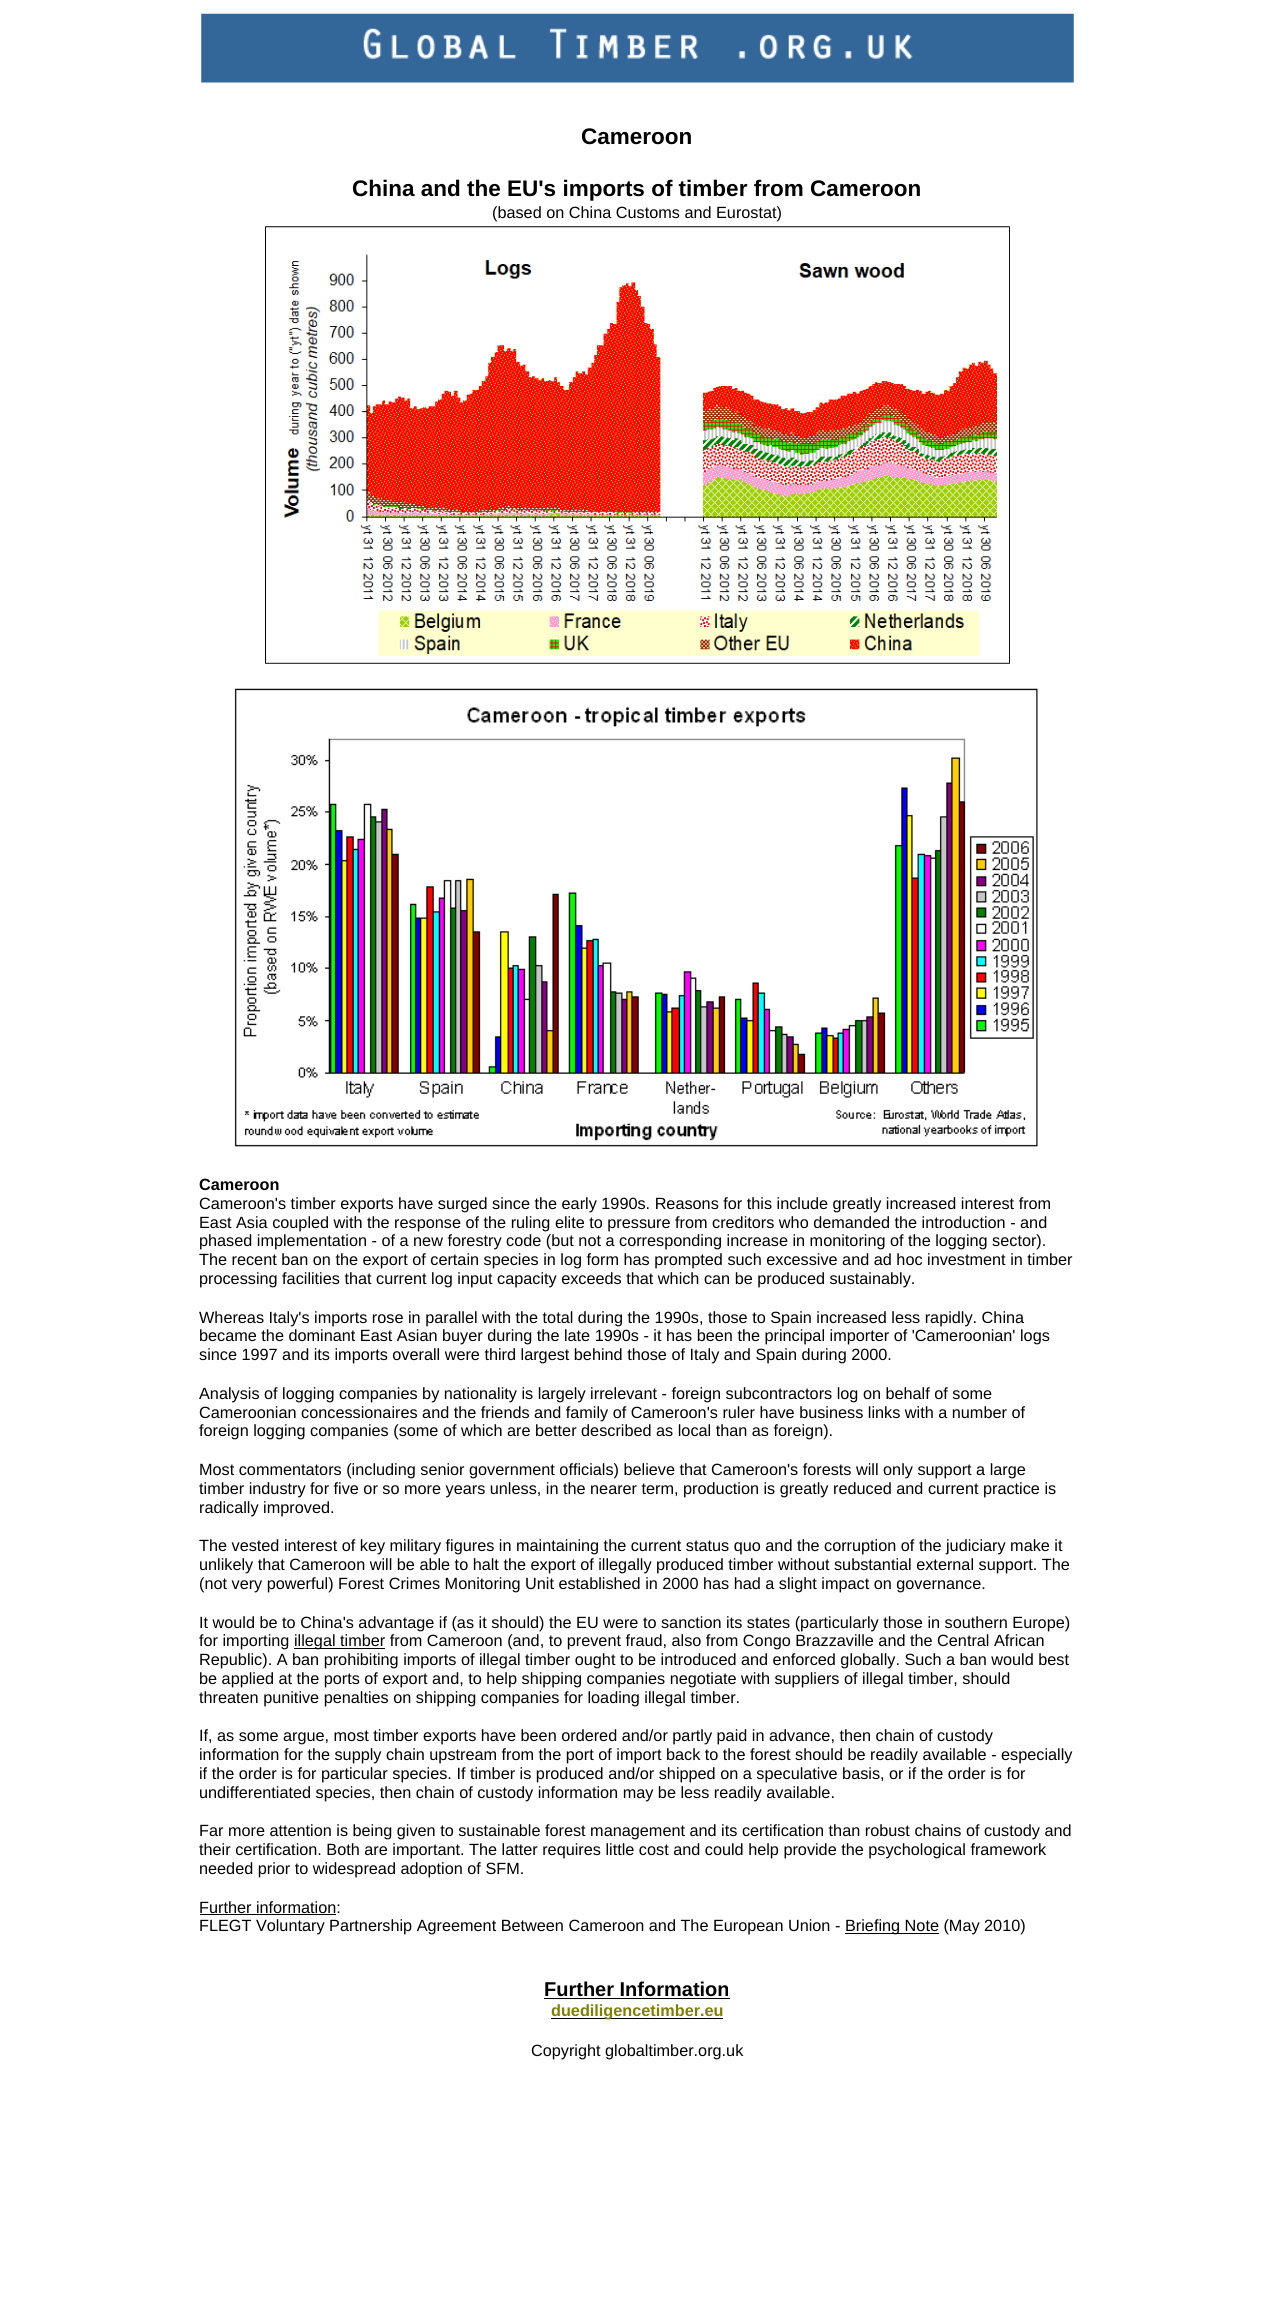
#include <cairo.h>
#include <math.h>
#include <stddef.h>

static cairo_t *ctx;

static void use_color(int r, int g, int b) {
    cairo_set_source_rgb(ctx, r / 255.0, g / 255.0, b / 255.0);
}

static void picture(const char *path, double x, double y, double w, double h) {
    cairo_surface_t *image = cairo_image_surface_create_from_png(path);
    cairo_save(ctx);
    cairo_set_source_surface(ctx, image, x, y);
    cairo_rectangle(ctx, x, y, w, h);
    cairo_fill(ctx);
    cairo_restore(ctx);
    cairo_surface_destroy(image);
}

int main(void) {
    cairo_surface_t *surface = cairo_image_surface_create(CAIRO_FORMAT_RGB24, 1273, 2312);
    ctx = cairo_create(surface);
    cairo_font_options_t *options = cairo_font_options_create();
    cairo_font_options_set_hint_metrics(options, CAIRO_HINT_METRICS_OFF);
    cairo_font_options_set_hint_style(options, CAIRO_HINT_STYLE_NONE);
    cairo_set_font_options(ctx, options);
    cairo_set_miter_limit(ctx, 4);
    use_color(255, 255, 255);
    cairo_paint(ctx);
    picture("img1.png", 201, 13, 873, 70);
    cairo_select_font_face(ctx, "Liberation Sans", CAIRO_FONT_SLANT_NORMAL, CAIRO_FONT_WEIGHT_BOLD);
    cairo_set_font_size(ctx, 22.5);
    use_color(0, 0, 0);
    cairo_move_to(ctx, 581, 144);
    cairo_show_text(ctx, "Cameroon");
    cairo_move_to(ctx, 352, 196);
    cairo_show_text(ctx, "China and the EU's imports of timber from Cameroon");
    cairo_select_font_face(ctx, "Liberation Sans", CAIRO_FONT_SLANT_NORMAL, CAIRO_FONT_WEIGHT_NORMAL);
    cairo_set_font_size(ctx, 16.25);
    cairo_move_to(ctx, 492, 218);
    cairo_show_text(ctx, "(based on China Customs and Eurostat)");
    picture("img2.png", 265, 226, 745, 438);
    picture("img3.png", 234, 688, 804, 459);
    cairo_select_font_face(ctx, "Liberation Sans", CAIRO_FONT_SLANT_NORMAL, CAIRO_FONT_WEIGHT_BOLD);
    cairo_move_to(ctx, 199, 1190);
    cairo_show_text(ctx, "Cameroon");
    cairo_select_font_face(ctx, "Liberation Sans", CAIRO_FONT_SLANT_NORMAL, CAIRO_FONT_WEIGHT_NORMAL);
    cairo_move_to(ctx, 199, 1209);
    cairo_show_text(ctx, "Cameroon's timber exports have surged since the early 1990s. Reasons for this include greatly increased interest from");
    cairo_move_to(ctx, 199, 1228);
    cairo_show_text(ctx, "East Asia coupled with the response of the ruling elite to pressure from creditors who demanded the introduction - and");
    cairo_move_to(ctx, 199, 1246);
    cairo_show_text(ctx, "phased implementation - of a new forestry code (but not a corresponding increase in monitoring of the logging sector).");
    cairo_move_to(ctx, 199, 1265);
    cairo_show_text(ctx, "The recent ban on the export of certain species in log form has prompted such excessive and ad hoc investment in timber");
    cairo_move_to(ctx, 199, 1284);
    cairo_show_text(ctx, "processing facilities that current log input capacity exceeds that which can be produced sustainably.");
    cairo_move_to(ctx, 199, 1323);
    cairo_show_text(ctx, "Whereas Italy's imports rose in parallel with the total during the 1990s, those to Spain increased less rapidly. China");
    cairo_move_to(ctx, 199, 1341);
    cairo_show_text(ctx, "became the dominant East Asian buyer during the late 1990s - it has been the principal importer of 'Cameroonian' logs");
    cairo_move_to(ctx, 199, 1360);
    cairo_show_text(ctx, "since 1997 and its imports overall were third largest behind those of Italy and Spain during 2000.");
    cairo_move_to(ctx, 199, 1399);
    cairo_show_text(ctx, "Analysis of logging companies by nationality is largely irrelevant - foreign subcontractors log on behalf of some");
    cairo_move_to(ctx, 199, 1418);
    cairo_show_text(ctx, "Cameroonian concessionaires and the friends and family of Cameroon's ruler have business links with a number of");
    cairo_move_to(ctx, 199, 1436);
    cairo_show_text(ctx, "foreign logging companies (some of which are better described as local than as foreign).");
    cairo_move_to(ctx, 199, 1475);
    cairo_show_text(ctx, "Most commentators (including senior government officials) believe that Cameroon's forests will only support a large");
    cairo_move_to(ctx, 199, 1494);
    cairo_show_text(ctx, "timber industry for five or so more years unless, in the nearer term, production is greatly reduced and current practice is");
    cairo_move_to(ctx, 199, 1513);
    cairo_show_text(ctx, "radically improved.");
    cairo_move_to(ctx, 199, 1551);
    cairo_show_text(ctx, "The vested interest of key military figures in maintaining the current status quo and the corruption of the judiciary make it");
    cairo_move_to(ctx, 199, 1570);
    cairo_show_text(ctx, "unlikely that Cameroon will be able to halt the export of illegally produced timber without substantial external support. The");
    cairo_move_to(ctx, 199, 1589);
    cairo_show_text(ctx, "(not very powerful) Forest Crimes Monitoring Unit established in 2000 has had a slight impact on governance.");
    cairo_move_to(ctx, 199, 1628);
    cairo_show_text(ctx, "It would be to China's advantage if (as it should) the EU were to sanction its states (particularly those in southern Europe)");
    cairo_move_to(ctx, 199, 1646);
    cairo_show_text(ctx, "for importing");
    cairo_rectangle(ctx, 294, 1648, 91, 1);
    cairo_fill(ctx);
    cairo_move_to(ctx, 294, 1646);
    cairo_show_text(ctx, "illegal timber from Cameroon (and, to prevent fraud, also from Congo Brazzaville and the Central African");
    cairo_move_to(ctx, 199, 1665);
    cairo_show_text(ctx, "Republic). A ban prohibiting imports of illegal timber ought to be introduced and enforced globally. Such a ban would best");
    cairo_move_to(ctx, 199, 1684);
    cairo_show_text(ctx, "be applied at the ports of export and, to help shipping companies negotiate with suppliers of illegal timber, should");
    cairo_move_to(ctx, 199, 1703);
    cairo_show_text(ctx, "threaten punitive penalties on shipping companies for loading illegal timber.");
    cairo_move_to(ctx, 199, 1741);
    cairo_show_text(ctx, "If, as some argue, most timber exports have been ordered and/or partly paid in advance, then chain of custody");
    cairo_move_to(ctx, 199, 1760);
    cairo_show_text(ctx, "information for the supply chain upstream from the port of import back to the forest should be readily available - especially");
    cairo_move_to(ctx, 199, 1779);
    cairo_show_text(ctx, "if the order is for particular species. If timber is produced and/or shipped on a speculative basis, or if the order is for");
    cairo_move_to(ctx, 199, 1798);
    cairo_show_text(ctx, "undifferentiated species, then chain of custody information may be less readily available.");
    cairo_move_to(ctx, 199, 1836);
    cairo_show_text(ctx, "Far more attention is being given to sustainable forest management and its certification than robust chains of custody and");
    cairo_move_to(ctx, 199, 1855);
    cairo_show_text(ctx, "their certification. Both are important. The latter requires little cost and could help provide the psychological framework");
    cairo_move_to(ctx, 199, 1874);
    cairo_show_text(ctx, "needed prior to widespread adoption of SFM.");
    cairo_move_to(ctx, 199, 1913);
    cairo_show_text(ctx, "Further information:");
    cairo_rectangle(ctx, 200, 1914, 136, 1);
    cairo_fill(ctx);
    cairo_move_to(ctx, 199, 1931);
    cairo_show_text(ctx, "FLEGT Voluntary Partnership Agreement Between Cameroon and The European Union -");
    cairo_rectangle(ctx, 845, 1933, 94, 1);
    cairo_fill(ctx);
    cairo_move_to(ctx, 845, 1931);
    cairo_show_text(ctx, "Briefing Note (May 2010)");
    cairo_select_font_face(ctx, "Liberation Sans", CAIRO_FONT_SLANT_NORMAL, CAIRO_FONT_WEIGHT_BOLD);
    cairo_set_font_size(ctx, 20);
    cairo_move_to(ctx, 544, 1996);
    cairo_show_text(ctx, "Further Information");
    cairo_rectangle(ctx, 544, 1998, 186, 1);
    cairo_fill(ctx);
    cairo_rectangle(ctx, 551, 2018, 172, 1);
    cairo_fill(ctx);
    cairo_set_font_size(ctx, 16.25);
    use_color(128, 128, 0);
    cairo_move_to(ctx, 551, 2016);
    cairo_show_text(ctx, "duediligencetimber.eu");
    cairo_select_font_face(ctx, "Liberation Sans", CAIRO_FONT_SLANT_NORMAL, CAIRO_FONT_WEIGHT_NORMAL);
    use_color(0, 0, 0);
    cairo_move_to(ctx, 531, 2056);
    cairo_show_text(ctx, "Copyright globaltimber.org.uk");
    cairo_surface_write_to_png(surface, "result.png");
    cairo_font_options_destroy(options);
    cairo_destroy(ctx);
    cairo_surface_destroy(surface);
    return 0;
}
